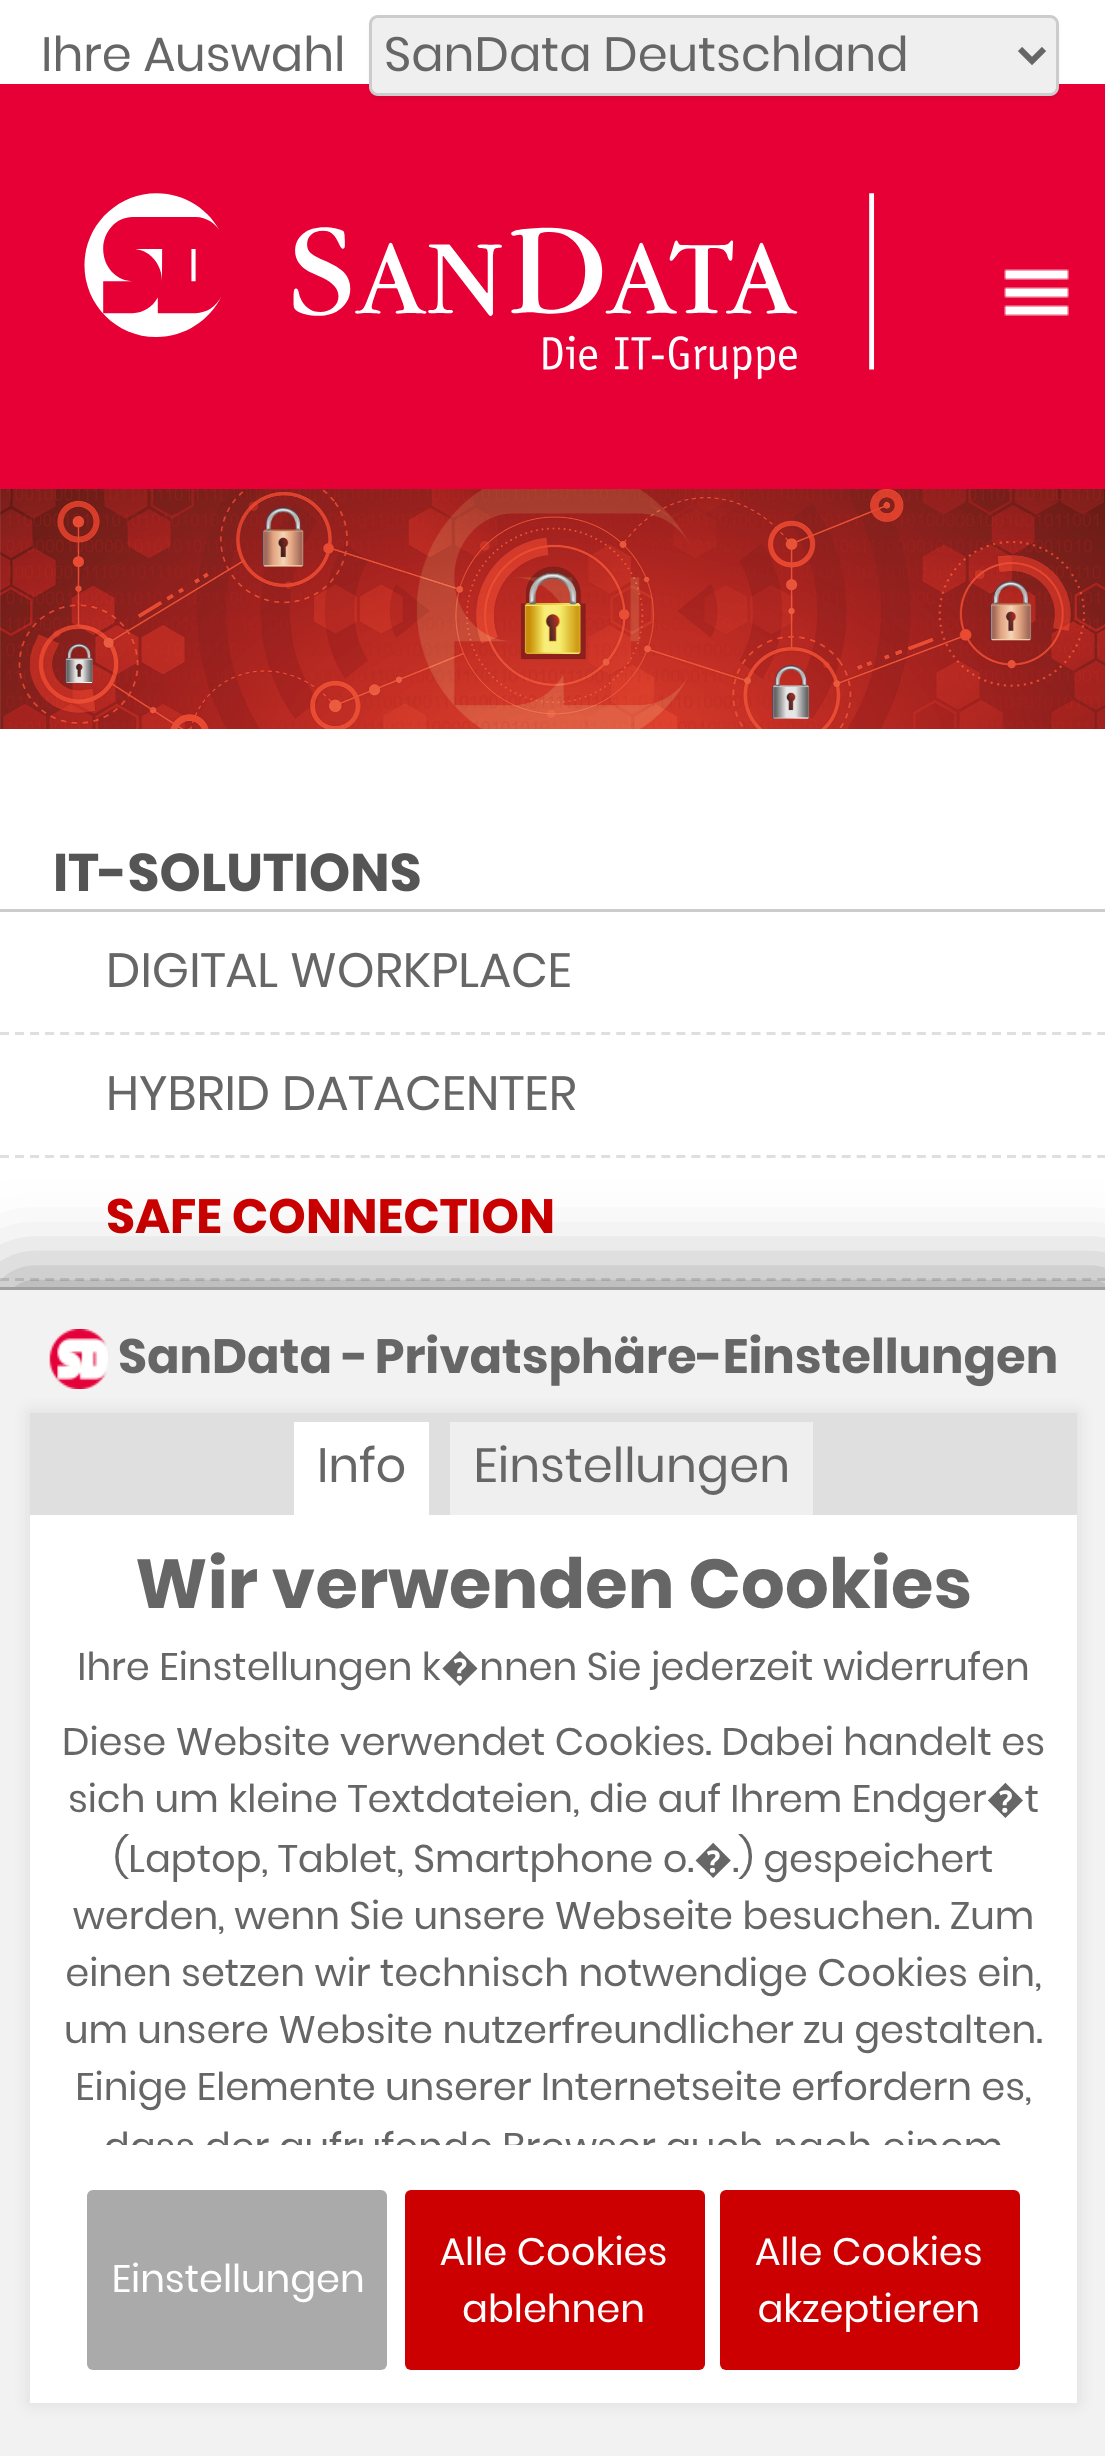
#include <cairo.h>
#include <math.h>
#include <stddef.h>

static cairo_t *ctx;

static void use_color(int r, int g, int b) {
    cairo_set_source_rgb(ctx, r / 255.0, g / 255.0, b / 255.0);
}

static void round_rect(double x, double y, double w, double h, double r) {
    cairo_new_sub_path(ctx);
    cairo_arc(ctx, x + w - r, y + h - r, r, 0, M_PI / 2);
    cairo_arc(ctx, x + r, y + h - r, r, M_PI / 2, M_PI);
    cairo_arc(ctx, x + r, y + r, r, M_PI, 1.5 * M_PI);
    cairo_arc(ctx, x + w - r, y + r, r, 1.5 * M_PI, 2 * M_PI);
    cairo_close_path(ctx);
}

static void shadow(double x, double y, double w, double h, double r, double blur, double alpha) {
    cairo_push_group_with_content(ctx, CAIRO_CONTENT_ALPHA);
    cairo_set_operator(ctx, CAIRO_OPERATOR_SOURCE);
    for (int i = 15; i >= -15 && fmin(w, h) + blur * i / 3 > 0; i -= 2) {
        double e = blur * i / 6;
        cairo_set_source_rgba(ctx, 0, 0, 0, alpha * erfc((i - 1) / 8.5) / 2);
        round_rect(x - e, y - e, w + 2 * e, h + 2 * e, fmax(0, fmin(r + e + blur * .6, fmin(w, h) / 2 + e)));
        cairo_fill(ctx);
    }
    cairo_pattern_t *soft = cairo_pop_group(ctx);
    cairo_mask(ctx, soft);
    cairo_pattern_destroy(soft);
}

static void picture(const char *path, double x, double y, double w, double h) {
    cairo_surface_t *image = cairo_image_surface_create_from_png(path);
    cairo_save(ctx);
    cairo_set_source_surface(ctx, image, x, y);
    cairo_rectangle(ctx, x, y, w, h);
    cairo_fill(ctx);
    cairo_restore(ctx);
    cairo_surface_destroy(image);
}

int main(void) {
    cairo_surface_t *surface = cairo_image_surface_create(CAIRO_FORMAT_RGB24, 1105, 2456);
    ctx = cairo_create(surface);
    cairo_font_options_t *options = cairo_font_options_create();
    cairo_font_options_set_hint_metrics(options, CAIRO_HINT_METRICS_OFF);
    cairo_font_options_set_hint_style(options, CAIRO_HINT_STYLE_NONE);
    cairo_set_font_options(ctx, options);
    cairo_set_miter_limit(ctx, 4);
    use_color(255, 255, 255);
    cairo_paint(ctx);
    cairo_select_font_face(ctx, "Poppins", CAIRO_FONT_SLANT_NORMAL, CAIRO_FONT_WEIGHT_NORMAL);
    cairo_set_font_size(ctx, 48);
    use_color(102, 102, 102);
    cairo_move_to(ctx, 41, 71);
    cairo_show_text(ctx, "Ihre Auswahl");
    use_color(230, 0, 53);
    cairo_rectangle(ctx, 0, 84, 1105, 405);
    cairo_fill(ctx);
    use_color(0, 0, 0);
    shadow(369, 18, 690, 81, 9, 1.5, 0.05);
    use_color(239, 239, 239);
    round_rect(370.5, 16.5, 687, 78, 7.5);
    cairo_fill_preserve(ctx);
    use_color(204, 204, 204);
    cairo_set_line_width(ctx, 3);
    cairo_stroke(ctx);
    cairo_new_path(ctx);
    cairo_move_to(ctx, 1020, 49);
    cairo_line_to(ctx, 1032, 61);
    cairo_line_to(ctx, 1044, 49);
    use_color(102, 102, 102);
    cairo_set_line_width(ctx, 6);
    cairo_stroke(ctx);
    cairo_move_to(ctx, 384, 71);
    cairo_show_text(ctx, "SanData Deutschland");
    picture("img1.png", 84, 193, 791, 187);
    picture("img2.png", 1004, 269, 65, 47);
    picture("img3.png", 0, 489, 1105, 240);
    use_color(204, 204, 204);
    cairo_rectangle(ctx, 0, 909, 1105, 3);
    cairo_fill(ctx);
    cairo_select_font_face(ctx, "Poppins", CAIRO_FONT_SLANT_NORMAL, CAIRO_FONT_WEIGHT_BOLD);
    cairo_set_font_size(ctx, 52.75);
    use_color(85, 85, 85);
    cairo_move_to(ctx, 53, 891);
    cairo_show_text(ctx, "IT-SOLUTIONS");
    cairo_new_path(ctx);
    cairo_move_to(ctx, 0, 1033.5);
    cairo_line_to(ctx, 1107, 1033.5);
    use_color(223, 223, 223);
    cairo_set_line_width(ctx, 3);
    cairo_set_dash(ctx, (double[]){9, 6.03}, 2, 0);
    cairo_stroke(ctx);
    cairo_select_font_face(ctx, "Poppins", CAIRO_FONT_SLANT_NORMAL, CAIRO_FONT_WEIGHT_NORMAL);
    cairo_set_font_size(ctx, 48);
    use_color(102, 102, 102);
    cairo_move_to(ctx, 106, 987);
    cairo_show_text(ctx, "DIGITAL WORKPLACE");
    cairo_new_path(ctx);
    cairo_move_to(ctx, 0, 1156.5);
    cairo_line_to(ctx, 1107, 1156.5);
    use_color(223, 223, 223);
    cairo_stroke(ctx);
    use_color(102, 102, 102);
    cairo_move_to(ctx, 106, 1110);
    cairo_show_text(ctx, "HYBRID DATACENTER");
    cairo_new_path(ctx);
    cairo_move_to(ctx, 0, 1279.5);
    cairo_line_to(ctx, 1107, 1279.5);
    use_color(223, 223, 223);
    cairo_stroke(ctx);
    cairo_select_font_face(ctx, "Poppins", CAIRO_FONT_SLANT_NORMAL, CAIRO_FONT_WEIGHT_BOLD);
    use_color(204, 0, 0);
    cairo_move_to(ctx, 106, 1233);
    cairo_show_text(ctx, "SAFE CONNECTION");
    use_color(0, 0, 0);
    shadow(9, 1287, 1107, 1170, 0, 43.5, 0.5);
    use_color(242, 242, 242);
    cairo_rectangle(ctx, 0, 1290, 1105, 1166);
    cairo_fill(ctx);
    use_color(160, 160, 160);
    cairo_rectangle(ctx, 0, 1287, 1105, 3);
    cairo_fill(ctx);
    picture("img4.png", 49, 1329, 59, 60);
    use_color(102, 102, 102);
    cairo_move_to(ctx, 118, 1373);
    cairo_show_text(ctx, "SanData − Privatsphäre-Einstellungen");
    use_color(0, 0, 0);
    shadow(30, 1413, 1047, 990, 0, 9, 0.1);
    picture("img5.png", 30, 1413, 1047, 957);
    use_color(255, 255, 255);
    cairo_rectangle(ctx, 30, 2370, 1047, 33);
    cairo_fill(ctx);
    cairo_surface_write_to_png(surface, "result.png");
    cairo_font_options_destroy(options);
    cairo_destroy(ctx);
    cairo_surface_destroy(surface);
    return 0;
}
